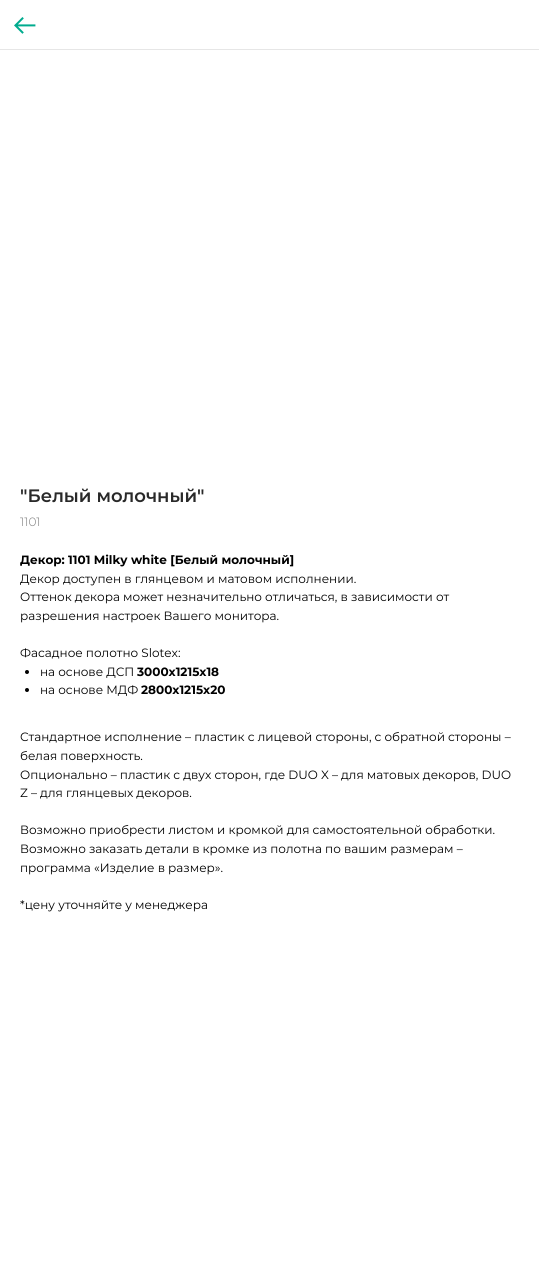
#include <cairo.h>
#include <math.h>
#include <stddef.h>

static cairo_t *ctx;

static void use_color(int r, int g, int b) {
    cairo_set_source_rgb(ctx, r / 255.0, g / 255.0, b / 255.0);
}

static void picture(const char *path, double x, double y, double w, double h) {
    cairo_surface_t *image = cairo_image_surface_create_from_png(path);
    cairo_save(ctx);
    cairo_set_source_surface(ctx, image, x, y);
    cairo_rectangle(ctx, x, y, w, h);
    cairo_fill(ctx);
    cairo_restore(ctx);
    cairo_surface_destroy(image);
}

int main(void) {
    cairo_surface_t *surface = cairo_image_surface_create(CAIRO_FORMAT_RGB24, 539, 1284);
    ctx = cairo_create(surface);
    cairo_font_options_t *options = cairo_font_options_create();
    cairo_font_options_set_hint_metrics(options, CAIRO_HINT_METRICS_OFF);
    cairo_font_options_set_hint_style(options, CAIRO_HINT_STYLE_NONE);
    cairo_set_font_options(ctx, options);
    cairo_set_miter_limit(ctx, 4);
    use_color(255, 255, 255);
    cairo_paint(ctx);
    use_color(230, 230, 230);
    cairo_rectangle(ctx, 0, 49, 539, 1);
    cairo_fill(ctx);
    picture("img1.png", 14, 17, 22, 17);
    cairo_select_font_face(ctx, "Montserrat SemiBold", CAIRO_FONT_SLANT_NORMAL, CAIRO_FONT_WEIGHT_NORMAL);
    cairo_set_font_size(ctx, 18);
    use_color(41, 41, 41);
    cairo_move_to(ctx, 20, 502);
    cairo_show_text(ctx, "\"Белый молочный\"");
    cairo_select_font_face(ctx, "Montserrat Light", CAIRO_FONT_SLANT_NORMAL, CAIRO_FONT_WEIGHT_NORMAL);
    cairo_set_font_size(ctx, 12);
    use_color(119, 119, 119);
    cairo_move_to(ctx, 20, 526);
    cairo_show_text(ctx, "1101");
    cairo_select_font_face(ctx, "Montserrat", CAIRO_FONT_SLANT_NORMAL, CAIRO_FONT_WEIGHT_BOLD);
    use_color(0, 0, 0);
    cairo_move_to(ctx, 20, 564);
    cairo_show_text(ctx, "Декор: 1101 Milky white [Белый молочный]");
    cairo_select_font_face(ctx, "Montserrat", CAIRO_FONT_SLANT_NORMAL, CAIRO_FONT_WEIGHT_NORMAL);
    cairo_move_to(ctx, 20, 583);
    cairo_show_text(ctx, "Декор доступен в глянцевом и матовом исполнении.");
    cairo_move_to(ctx, 20, 601);
    cairo_show_text(ctx, "Оттенок декора может незначительно отличаться, в зависимости от");
    cairo_move_to(ctx, 20, 620);
    cairo_show_text(ctx, "разрешения настроек Вашего монитора.");
    cairo_move_to(ctx, 20, 657);
    cairo_show_text(ctx, "Фасадное полотно Slotex:");
    cairo_new_path(ctx);
    cairo_arc(ctx, 27, 672, 2, 0, 2 * M_PI);
    cairo_fill(ctx);
    cairo_move_to(ctx, 40, 676);
    cairo_show_text(ctx, "на основе ДСП");
    cairo_select_font_face(ctx, "Montserrat", CAIRO_FONT_SLANT_NORMAL, CAIRO_FONT_WEIGHT_BOLD);
    cairo_move_to(ctx, 137, 676);
    cairo_show_text(ctx, "3000х1215х18");
    cairo_new_path(ctx);
    cairo_arc(ctx, 27, 690, 2, 0, 2 * M_PI);
    cairo_fill(ctx);
    cairo_select_font_face(ctx, "Montserrat", CAIRO_FONT_SLANT_NORMAL, CAIRO_FONT_WEIGHT_NORMAL);
    cairo_move_to(ctx, 40, 694);
    cairo_show_text(ctx, "на основе МДФ");
    cairo_select_font_face(ctx, "Montserrat", CAIRO_FONT_SLANT_NORMAL, CAIRO_FONT_WEIGHT_BOLD);
    cairo_move_to(ctx, 141, 694);
    cairo_show_text(ctx, "2800х1215х20");
    cairo_select_font_face(ctx, "Montserrat", CAIRO_FONT_SLANT_NORMAL, CAIRO_FONT_WEIGHT_NORMAL);
    cairo_move_to(ctx, 20, 741);
    cairo_show_text(ctx, "Стандартное исполнение – пластик с лицевой стороны, с обратной стороны –");
    cairo_move_to(ctx, 20, 760);
    cairo_show_text(ctx, "белая поверхность.");
    cairo_move_to(ctx, 20, 779);
    cairo_show_text(ctx, "Опционально – пластик с двух сторон, где DUO X – для матовых декоров, DUO");
    cairo_move_to(ctx, 20, 797);
    cairo_show_text(ctx, "Z – для глянцевых декоров.");
    cairo_move_to(ctx, 20, 834);
    cairo_show_text(ctx, "Возможно приобрести листом и кромкой для самостоятельной обработки.");
    cairo_move_to(ctx, 20, 853);
    cairo_show_text(ctx, "Возможно заказать детали в кромке из полотна по вашим размерам –");
    cairo_move_to(ctx, 20, 872);
    cairo_show_text(ctx, "программа «Изделие в размер».");
    cairo_move_to(ctx, 20, 909);
    cairo_show_text(ctx, "*цену уточняйте у менеджера");
    cairo_surface_write_to_png(surface, "result.png");
    cairo_font_options_destroy(options);
    cairo_destroy(ctx);
    cairo_surface_destroy(surface);
    return 0;
}
